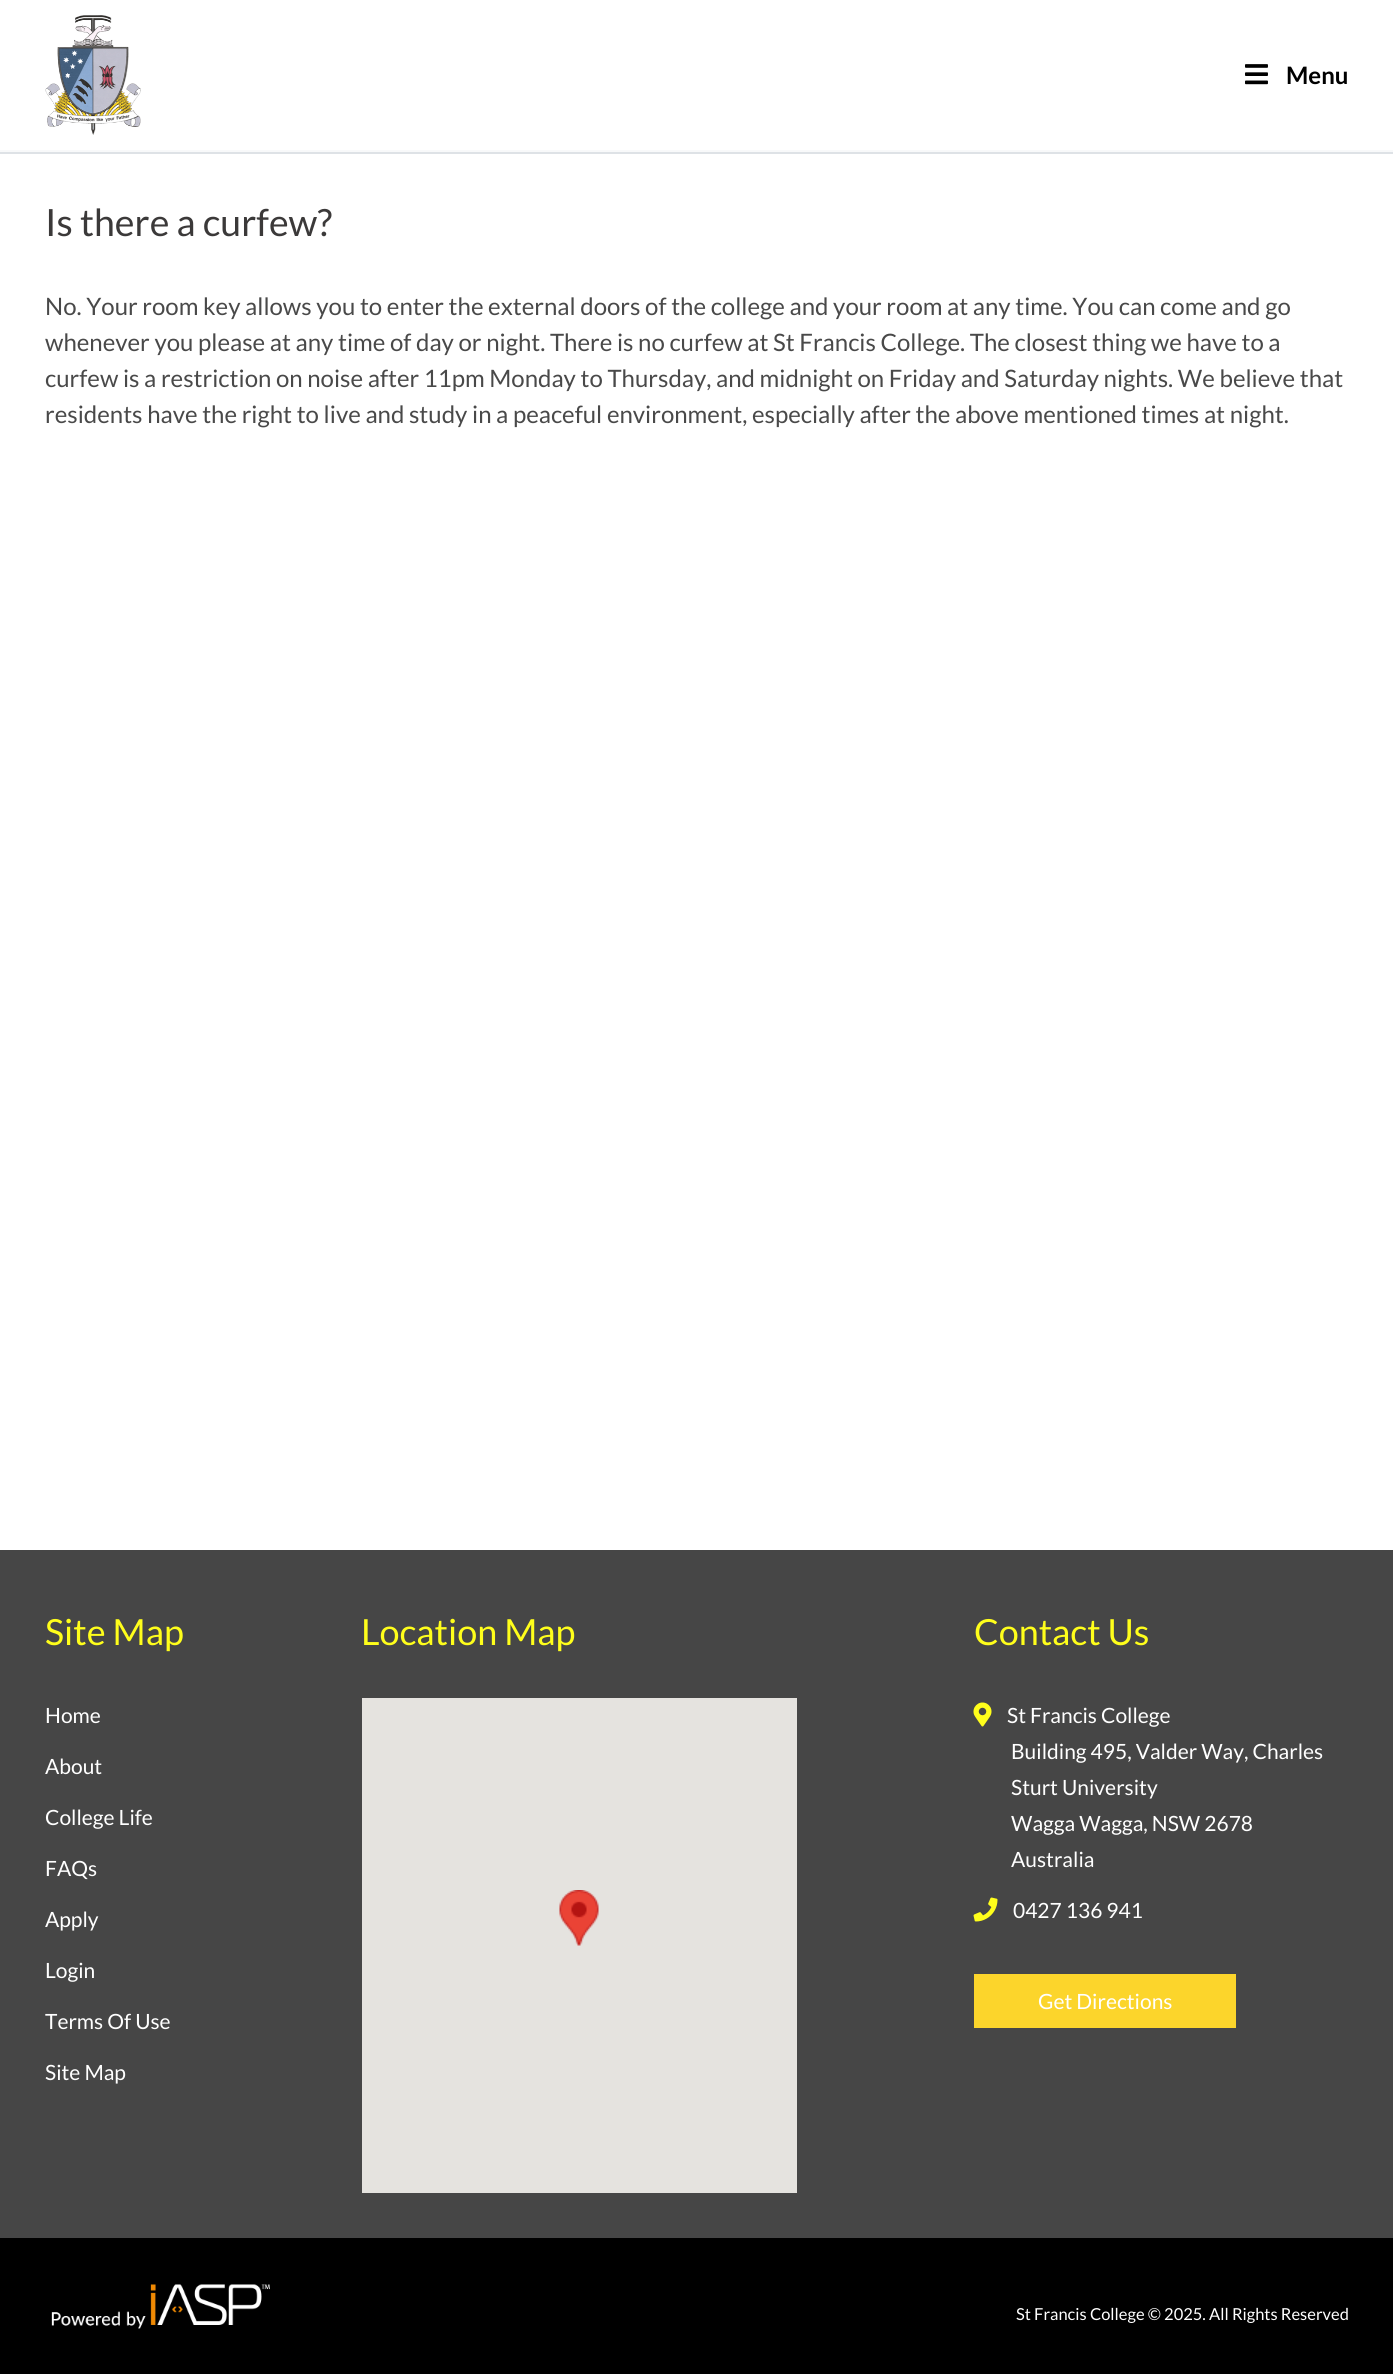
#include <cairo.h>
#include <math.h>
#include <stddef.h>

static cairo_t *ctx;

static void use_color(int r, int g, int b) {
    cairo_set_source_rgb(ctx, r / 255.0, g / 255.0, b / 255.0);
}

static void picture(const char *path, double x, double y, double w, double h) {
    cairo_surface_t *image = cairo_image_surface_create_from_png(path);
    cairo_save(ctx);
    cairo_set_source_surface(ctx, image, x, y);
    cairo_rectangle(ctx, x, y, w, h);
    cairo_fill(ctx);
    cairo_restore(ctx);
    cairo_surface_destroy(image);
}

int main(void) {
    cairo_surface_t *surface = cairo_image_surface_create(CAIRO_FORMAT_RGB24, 1393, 2374);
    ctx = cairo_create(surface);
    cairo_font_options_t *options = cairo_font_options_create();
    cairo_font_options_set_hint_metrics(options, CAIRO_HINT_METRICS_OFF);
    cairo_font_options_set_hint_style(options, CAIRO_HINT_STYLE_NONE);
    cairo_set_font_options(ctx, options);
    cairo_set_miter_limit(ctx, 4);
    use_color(255, 255, 255);
    cairo_paint(ctx);
    picture("img1.png", 45, 15, 96, 120);
    picture("img2.png", 1245, 64, 23, 21);
    cairo_select_font_face(ctx, "Lato", CAIRO_FONT_SLANT_NORMAL, CAIRO_FONT_WEIGHT_BOLD);
    cairo_set_font_size(ctx, 24);
    use_color(0, 0, 0);
    cairo_move_to(ctx, 1286, 84);
    cairo_show_text(ctx, "Menu");
    use_color(248, 249, 250);
    cairo_rectangle(ctx, 0, 150, 1393, 2);
    cairo_fill(ctx);
    use_color(222, 226, 230);
    cairo_rectangle(ctx, 0, 152, 1393, 2);
    cairo_fill(ctx);
    cairo_select_font_face(ctx, "Lato", CAIRO_FONT_SLANT_NORMAL, CAIRO_FONT_WEIGHT_NORMAL);
    cairo_set_font_size(ctx, 37.5);
    use_color(59, 57, 57);
    cairo_move_to(ctx, 45, 236);
    cairo_show_text(ctx, "Is there a curfew?");
    cairo_set_font_size(ctx, 24);
    use_color(73, 73, 73);
    cairo_move_to(ctx, 45, 315);
    cairo_show_text(ctx, "No. Your room key allows you to enter the external doors of the college and your room at any time. You can come and go");
    cairo_move_to(ctx, 45, 351);
    cairo_show_text(ctx, "whenever you please at any time of day or night. There is no curfew at St Francis College. The closest thing we have to a");
    cairo_move_to(ctx, 45, 387);
    cairo_show_text(ctx, "curfew is a restriction on noise after 11pm Monday to Thursday, and midnight on Friday and Saturday nights. We believe that");
    cairo_move_to(ctx, 45, 423);
    cairo_show_text(ctx, "residents have the right to live and study in a peaceful environment, especially after the above mentioned times at night.");
    use_color(70, 70, 70);
    cairo_rectangle(ctx, 0, 1550, 1393, 688);
    cairo_fill(ctx);
    cairo_set_font_size(ctx, 36);
    use_color(255, 254, 27);
    cairo_move_to(ctx, 45, 1645);
    cairo_show_text(ctx, "Site Map");
    cairo_set_font_size(ctx, 21);
    use_color(255, 255, 255);
    cairo_move_to(ctx, 45, 1723);
    cairo_show_text(ctx, "Home");
    cairo_move_to(ctx, 45, 1774);
    cairo_show_text(ctx, "About");
    cairo_move_to(ctx, 45, 1825);
    cairo_show_text(ctx, "College Life");
    cairo_move_to(ctx, 45, 1876);
    cairo_show_text(ctx, "FAQs");
    cairo_move_to(ctx, 45, 1927);
    cairo_show_text(ctx, "Apply");
    cairo_move_to(ctx, 45, 1978);
    cairo_show_text(ctx, "Login");
    cairo_move_to(ctx, 45, 2029);
    cairo_show_text(ctx, "Terms Of Use");
    cairo_move_to(ctx, 45, 2080);
    cairo_show_text(ctx, "Site Map");
    cairo_set_font_size(ctx, 36);
    use_color(255, 254, 27);
    cairo_move_to(ctx, 361, 1645);
    cairo_show_text(ctx, "Location Map");
    use_color(229, 227, 223);
    cairo_rectangle(ctx, 362, 1698, 435, 495);
    cairo_fill(ctx);
    picture("img3.png", 559, 1890, 40, 56);
    use_color(255, 254, 27);
    cairo_move_to(ctx, 974, 1645);
    cairo_show_text(ctx, "Contact Us");
    picture("img4.png", 973, 1702, 19, 25);
    cairo_set_font_size(ctx, 21);
    use_color(255, 255, 255);
    cairo_move_to(ctx, 1007, 1723);
    cairo_show_text(ctx, "St Francis College");
    cairo_move_to(ctx, 1011, 1759);
    cairo_show_text(ctx, "Building 495, Valder Way, Charles");
    cairo_move_to(ctx, 1011, 1795);
    cairo_show_text(ctx, "Sturt University");
    cairo_move_to(ctx, 1011, 1831);
    cairo_show_text(ctx, "Wagga Wagga, NSW 2678");
    cairo_move_to(ctx, 1011, 1867);
    cairo_show_text(ctx, "Australia");
    picture("img5.png", 973, 1897, 25, 25);
    cairo_move_to(ctx, 1013, 1918);
    cairo_show_text(ctx, "0427 136 941");
    use_color(252, 213, 43);
    cairo_rectangle(ctx, 974, 1974, 262, 54);
    cairo_fill(ctx);
    use_color(255, 255, 255);
    cairo_move_to(ctx, 1038, 2009);
    cairo_show_text(ctx, "Get Directions");
    use_color(0, 0, 0);
    cairo_rectangle(ctx, 0, 2238, 1393, 136);
    cairo_fill(ctx);
    picture("img6.png", 51, 2284, 219, 45);
    cairo_set_font_size(ctx, 16.5);
    use_color(255, 255, 255);
    cairo_move_to(ctx, 1016, 2320);
    cairo_show_text(ctx, "St Francis College © 2025. All Rights Reserved");
    cairo_surface_write_to_png(surface, "result.png");
    cairo_font_options_destroy(options);
    cairo_destroy(ctx);
    cairo_surface_destroy(surface);
    return 0;
}
